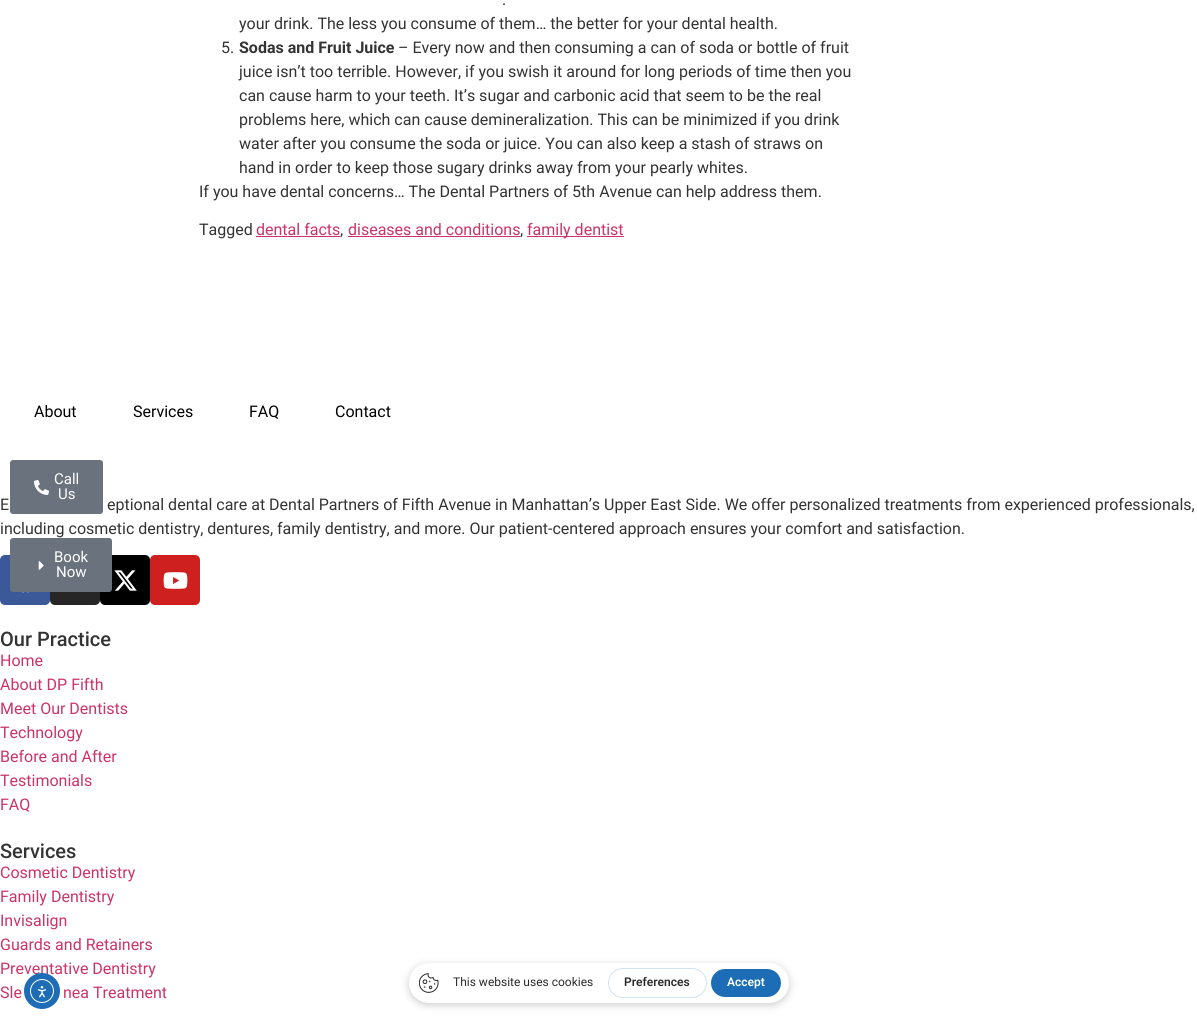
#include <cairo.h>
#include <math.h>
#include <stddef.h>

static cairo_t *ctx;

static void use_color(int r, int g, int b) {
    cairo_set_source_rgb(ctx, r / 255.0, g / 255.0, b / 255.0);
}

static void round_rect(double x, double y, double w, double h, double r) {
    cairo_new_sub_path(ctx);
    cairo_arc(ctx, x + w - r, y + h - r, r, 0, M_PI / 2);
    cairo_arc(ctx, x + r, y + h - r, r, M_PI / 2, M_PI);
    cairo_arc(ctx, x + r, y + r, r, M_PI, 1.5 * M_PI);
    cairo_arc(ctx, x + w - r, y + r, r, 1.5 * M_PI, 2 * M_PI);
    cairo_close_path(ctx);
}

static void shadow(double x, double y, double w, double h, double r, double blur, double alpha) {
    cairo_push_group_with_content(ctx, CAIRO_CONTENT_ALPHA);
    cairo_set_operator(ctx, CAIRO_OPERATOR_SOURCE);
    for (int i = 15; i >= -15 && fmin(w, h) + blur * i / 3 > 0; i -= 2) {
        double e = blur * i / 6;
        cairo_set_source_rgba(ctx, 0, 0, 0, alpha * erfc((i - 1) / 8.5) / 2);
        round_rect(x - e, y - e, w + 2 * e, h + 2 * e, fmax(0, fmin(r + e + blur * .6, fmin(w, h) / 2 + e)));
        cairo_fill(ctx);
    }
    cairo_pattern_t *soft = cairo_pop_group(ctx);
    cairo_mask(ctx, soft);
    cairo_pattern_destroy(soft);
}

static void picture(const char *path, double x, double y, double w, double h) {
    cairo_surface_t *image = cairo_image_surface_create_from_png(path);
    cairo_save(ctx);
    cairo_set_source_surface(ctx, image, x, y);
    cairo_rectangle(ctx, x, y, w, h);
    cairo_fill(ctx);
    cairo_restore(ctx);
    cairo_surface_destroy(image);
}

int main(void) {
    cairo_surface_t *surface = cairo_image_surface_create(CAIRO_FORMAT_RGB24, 1197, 1033);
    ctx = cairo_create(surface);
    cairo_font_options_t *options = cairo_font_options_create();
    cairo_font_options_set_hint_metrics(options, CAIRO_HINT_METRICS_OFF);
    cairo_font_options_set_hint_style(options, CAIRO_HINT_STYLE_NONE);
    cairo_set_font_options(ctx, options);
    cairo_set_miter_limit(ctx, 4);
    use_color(255, 255, 255);
    cairo_paint(ctx);
    cairo_select_font_face(ctx, "Roboto", CAIRO_FONT_SLANT_NORMAL, CAIRO_FONT_WEIGHT_NORMAL);
    cairo_set_font_size(ctx, 16);
    use_color(51, 51, 51);
    cairo_move_to(ctx, 502, 5);
    cairo_show_text(ctx, ".");
    cairo_move_to(ctx, 239, 29);
    cairo_show_text(ctx, "your drink. The less you consume of them… the better for your dental health.");
    cairo_move_to(ctx, 221, 53);
    cairo_show_text(ctx, "5.");
    cairo_select_font_face(ctx, "Roboto", CAIRO_FONT_SLANT_NORMAL, CAIRO_FONT_WEIGHT_BOLD);
    cairo_move_to(ctx, 239, 53);
    cairo_show_text(ctx, "Sodas and Fruit Juice");
    cairo_select_font_face(ctx, "Roboto", CAIRO_FONT_SLANT_NORMAL, CAIRO_FONT_WEIGHT_NORMAL);
    cairo_move_to(ctx, 398, 53);
    cairo_show_text(ctx, "– Every now and then consuming a can of soda or bottle of fruit");
    cairo_move_to(ctx, 239, 77);
    cairo_show_text(ctx, "juice isn’t too terrible. However, if you swish it around for long periods of time then you");
    cairo_move_to(ctx, 239, 101);
    cairo_show_text(ctx, "can cause harm to your teeth. It’s sugar and carbonic acid that seem to be the real");
    cairo_move_to(ctx, 239, 125);
    cairo_show_text(ctx, "problems here, which can cause demineralization. This can be minimized if you drink");
    cairo_move_to(ctx, 239, 149);
    cairo_show_text(ctx, "water after you consume the soda or juice. You can also keep a stash of straws on");
    cairo_move_to(ctx, 239, 173);
    cairo_show_text(ctx, "hand in order to keep those sugary drinks away from your pearly whites.");
    cairo_move_to(ctx, 199, 197);
    cairo_show_text(ctx, "If you have dental concerns… The Dental Partners of 5th Avenue can help address them.");
    cairo_move_to(ctx, 199, 235);
    cairo_show_text(ctx, "Tagged");
    use_color(204, 51, 102);
    cairo_move_to(ctx, 256, 235);
    cairo_show_text(ctx, "dental facts");
    use_color(51, 51, 51);
    cairo_move_to(ctx, 340, 235);
    cairo_show_text(ctx, ",");
    use_color(204, 51, 102);
    cairo_rectangle(ctx, 256, 236, 84, 1);
    cairo_fill(ctx);
    cairo_move_to(ctx, 348, 235);
    cairo_show_text(ctx, "diseases and conditions");
    use_color(51, 51, 51);
    cairo_move_to(ctx, 520, 235);
    cairo_show_text(ctx, ",");
    use_color(204, 51, 102);
    cairo_rectangle(ctx, 348, 236, 172, 1);
    cairo_fill(ctx);
    cairo_rectangle(ctx, 527, 236, 97, 1);
    cairo_fill(ctx);
    cairo_move_to(ctx, 527, 235);
    cairo_show_text(ctx, "family dentist");
    use_color(0, 0, 0);
    cairo_move_to(ctx, 34, 417);
    cairo_show_text(ctx, "About");
    cairo_move_to(ctx, 133, 417);
    cairo_show_text(ctx, "Services");
    cairo_move_to(ctx, 249, 417);
    cairo_show_text(ctx, "FAQ");
    cairo_move_to(ctx, 335, 417);
    cairo_show_text(ctx, "Contact");
    use_color(105, 114, 125);
    round_rect(10, 460, 93, 54, 3);
    cairo_fill(ctx);
    picture("img1.png", 34, 480, 15, 15);
    cairo_set_font_size(ctx, 15);
    use_color(255, 255, 255);
    cairo_move_to(ctx, 54, 484);
    cairo_show_text(ctx, "Call");
    cairo_move_to(ctx, 58, 499);
    cairo_show_text(ctx, "Us");
    use_color(59, 89, 152);
    round_rect(0, 555, 50, 50, 5);
    cairo_fill(ctx);
    use_color(38, 38, 38);
    round_rect(50, 555, 50, 50, 5);
    cairo_fill(ctx);
    use_color(0, 0, 0);
    round_rect(100, 555, 50, 50, 5);
    cairo_fill(ctx);
    use_color(105, 114, 125);
    round_rect(10, 538, 102, 54, 3);
    cairo_fill(ctx);
    picture("img2.png", 38, 561, 6, 9);
    use_color(255, 255, 255);
    cairo_move_to(ctx, 54, 562);
    cairo_show_text(ctx, "Book");
    cairo_move_to(ctx, 56, 577);
    cairo_show_text(ctx, "Now");
    cairo_set_font_size(ctx, 16);
    use_color(51, 51, 51);
    cairo_move_to(ctx, 0, 510);
    cairo_show_text(ctx, "E");
    cairo_move_to(ctx, 107, 510);
    cairo_show_text(ctx, "eptional dental care at Dental Partners of Fifth Avenue in Manhattan’s Upper East Side. We offer personalized treatments from experienced professionals,");
    cairo_move_to(ctx, 0, 534);
    cairo_show_text(ctx, "including cosmetic dentistry, dentures, family dentistry, and more. Our patient-centered approach ensures your comfort and satisfaction.");
    picture("img3.png", 22, 592, 7, 1);
    picture("img4.png", 114, 570, 23, 21);
    use_color(205, 32, 31);
    round_rect(150, 555, 50, 50, 5);
    cairo_fill(ctx);
    picture("img5.png", 163, 572, 25, 17);
    cairo_select_font_face(ctx, "Roboto Medium", CAIRO_FONT_SLANT_NORMAL, CAIRO_FONT_WEIGHT_NORMAL);
    cairo_set_font_size(ctx, 20);
    use_color(51, 51, 51);
    cairo_move_to(ctx, 0, 646);
    cairo_show_text(ctx, "Our Practice");
    cairo_select_font_face(ctx, "Roboto", CAIRO_FONT_SLANT_NORMAL, CAIRO_FONT_WEIGHT_NORMAL);
    cairo_set_font_size(ctx, 16);
    use_color(204, 51, 102);
    cairo_move_to(ctx, 0, 666);
    cairo_show_text(ctx, "Home");
    cairo_move_to(ctx, 0, 690);
    cairo_show_text(ctx, "About DP Fifth");
    cairo_move_to(ctx, 0, 714);
    cairo_show_text(ctx, "Meet Our Dentists");
    cairo_move_to(ctx, 0, 738);
    cairo_show_text(ctx, "Technology");
    cairo_move_to(ctx, 0, 762);
    cairo_show_text(ctx, "Before and After");
    cairo_move_to(ctx, 0, 786);
    cairo_show_text(ctx, "Testimonials");
    cairo_move_to(ctx, 0, 810);
    cairo_show_text(ctx, "FAQ");
    cairo_select_font_face(ctx, "Roboto Medium", CAIRO_FONT_SLANT_NORMAL, CAIRO_FONT_WEIGHT_NORMAL);
    cairo_set_font_size(ctx, 20);
    use_color(51, 51, 51);
    cairo_move_to(ctx, 0, 858);
    cairo_show_text(ctx, "Services");
    cairo_select_font_face(ctx, "Roboto", CAIRO_FONT_SLANT_NORMAL, CAIRO_FONT_WEIGHT_NORMAL);
    cairo_set_font_size(ctx, 16);
    use_color(204, 51, 102);
    cairo_move_to(ctx, 0, 878);
    cairo_show_text(ctx, "Cosmetic Dentistry");
    cairo_move_to(ctx, 0, 902);
    cairo_show_text(ctx, "Family Dentistry");
    cairo_move_to(ctx, 0, 926);
    cairo_show_text(ctx, "Invisalign");
    cairo_move_to(ctx, 0, 950);
    cairo_show_text(ctx, "Guards and Retainers");
    cairo_move_to(ctx, 0, 974);
    cairo_show_text(ctx, "Preventative Dentistry");
    cairo_move_to(ctx, 0, 998);
    cairo_show_text(ctx, "Sle");
    cairo_move_to(ctx, 63, 998);
    cairo_show_text(ctx, "nea Treatment");
    use_color(28, 109, 182);
    cairo_new_path(ctx);
    cairo_arc(ctx, 42, 991, 18, 0, 2 * M_PI);
    cairo_fill(ctx);
    cairo_arc(ctx, 42, 991, 11.5, 0, 2 * M_PI);
    use_color(255, 255, 255);
    cairo_set_line_width(ctx, 1);
    cairo_stroke(ctx);
    picture("img6.png", 37, 986, 10, 12);
    use_color(0, 0, 0);
    shadow(409, 965, 380, 40, 20, 4, 0.2);
    use_color(255, 255, 255);
    round_rect(409, 963, 380, 40, 20);
    cairo_fill(ctx);
    picture("img7.png", 419, 973, 20, 20);
    cairo_set_font_size(ctx, 12);
    use_color(42, 42, 42);
    cairo_move_to(ctx, 453, 986);
    cairo_show_text(ctx, "This website uses cookies");
    round_rect(608.5, 968.5, 98, 29, 14.5);
    use_color(210, 226, 240);
    cairo_stroke(ctx);
    cairo_select_font_face(ctx, "Roboto SemiBold", CAIRO_FONT_SLANT_NORMAL, CAIRO_FONT_WEIGHT_NORMAL);
    use_color(42, 42, 42);
    cairo_move_to(ctx, 624, 986);
    cairo_show_text(ctx, "Preferences");
    use_color(28, 109, 182);
    round_rect(711, 969, 70, 28, 14);
    cairo_fill(ctx);
    use_color(255, 255, 255);
    cairo_move_to(ctx, 727, 986);
    cairo_show_text(ctx, "Accept");
    cairo_surface_write_to_png(surface, "result.png");
    cairo_font_options_destroy(options);
    cairo_destroy(ctx);
    cairo_surface_destroy(surface);
    return 0;
}
